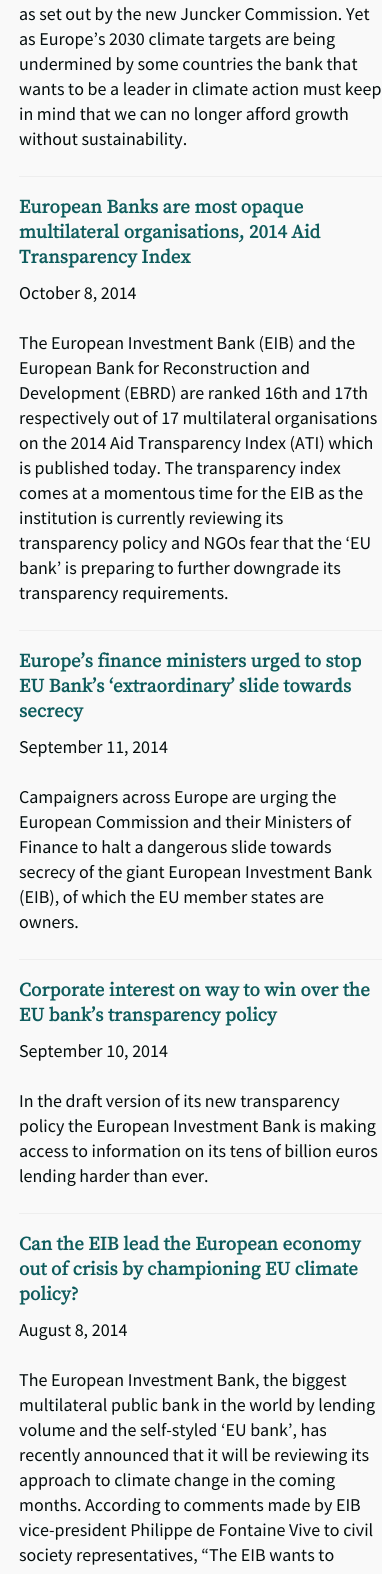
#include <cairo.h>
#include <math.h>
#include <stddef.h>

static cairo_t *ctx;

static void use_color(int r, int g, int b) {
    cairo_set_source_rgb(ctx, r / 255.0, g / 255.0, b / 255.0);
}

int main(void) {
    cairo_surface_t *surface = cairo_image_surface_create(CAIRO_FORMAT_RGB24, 382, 1574);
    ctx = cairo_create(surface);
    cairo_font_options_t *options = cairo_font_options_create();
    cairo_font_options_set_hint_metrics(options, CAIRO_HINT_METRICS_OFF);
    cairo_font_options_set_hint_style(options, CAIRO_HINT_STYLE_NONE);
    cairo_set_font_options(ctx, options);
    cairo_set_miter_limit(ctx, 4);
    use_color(249, 249, 249);
    cairo_paint(ctx);
    cairo_select_font_face(ctx, "Source Sans Pro", CAIRO_FONT_SLANT_NORMAL, CAIRO_FONT_WEIGHT_NORMAL);
    cairo_set_font_size(ctx, 18);
    use_color(4, 13, 13);
    cairo_move_to(ctx, 19, 20);
    cairo_show_text(ctx, "as set out by the new Juncker Commission. Yet");
    cairo_move_to(ctx, 19, 45);
    cairo_show_text(ctx, "as Europe’s 2030 climate targets are being");
    cairo_move_to(ctx, 19, 70);
    cairo_show_text(ctx, "undermined by some countries the bank that");
    cairo_move_to(ctx, 19, 95);
    cairo_show_text(ctx, "wants to be a leader in climate action must keep");
    cairo_move_to(ctx, 19, 120);
    cairo_show_text(ctx, "in mind that we can no longer afford growth");
    cairo_move_to(ctx, 19, 145);
    cairo_show_text(ctx, "without sustainability.");
    use_color(238, 238, 238);
    cairo_rectangle(ctx, 19, 176, 363, 1);
    cairo_fill(ctx);
    cairo_select_font_face(ctx, "Source Serif Pro", CAIRO_FONT_SLANT_NORMAL, CAIRO_FONT_WEIGHT_BOLD);
    cairo_set_font_size(ctx, 19);
    use_color(14, 92, 93);
    cairo_move_to(ctx, 19, 213);
    cairo_show_text(ctx, "European Banks are most opaque");
    cairo_move_to(ctx, 19, 238);
    cairo_show_text(ctx, "multilateral organisations, 2014 Aid");
    cairo_move_to(ctx, 19, 263);
    cairo_show_text(ctx, "Transparency Index");
    cairo_select_font_face(ctx, "Source Sans Pro", CAIRO_FONT_SLANT_NORMAL, CAIRO_FONT_WEIGHT_NORMAL);
    cairo_set_font_size(ctx, 18);
    use_color(4, 13, 13);
    cairo_move_to(ctx, 19, 299);
    cairo_show_text(ctx, "October 8, 2014");
    cairo_move_to(ctx, 19, 349);
    cairo_show_text(ctx, "The European Investment Bank (EIB) and the");
    cairo_move_to(ctx, 19, 374);
    cairo_show_text(ctx, "European Bank for Reconstruction and");
    cairo_move_to(ctx, 19, 399);
    cairo_show_text(ctx, "Development (EBRD) are ranked 16th and 17th");
    cairo_move_to(ctx, 19, 424);
    cairo_show_text(ctx, "respectively out of 17 multilateral organisations");
    cairo_move_to(ctx, 19, 449);
    cairo_show_text(ctx, "on the 2014 Aid Transparency Index (ATI) which");
    cairo_move_to(ctx, 19, 474);
    cairo_show_text(ctx, "is published today. The transparency index");
    cairo_move_to(ctx, 19, 499);
    cairo_show_text(ctx, "comes at a momentous time for the EIB as the");
    cairo_move_to(ctx, 19, 524);
    cairo_show_text(ctx, "institution is currently reviewing its");
    cairo_move_to(ctx, 19, 549);
    cairo_show_text(ctx, "transparency policy and NGOs fear that the ‘EU");
    cairo_move_to(ctx, 19, 574);
    cairo_show_text(ctx, "bank’ is preparing to further downgrade its");
    cairo_move_to(ctx, 19, 599);
    cairo_show_text(ctx, "transparency requirements.");
    use_color(238, 238, 238);
    cairo_rectangle(ctx, 19, 630, 363, 1);
    cairo_fill(ctx);
    cairo_select_font_face(ctx, "Source Serif Pro", CAIRO_FONT_SLANT_NORMAL, CAIRO_FONT_WEIGHT_BOLD);
    cairo_set_font_size(ctx, 19);
    use_color(14, 92, 93);
    cairo_move_to(ctx, 19, 667);
    cairo_show_text(ctx, "Europe’s finance ministers urged to stop");
    cairo_move_to(ctx, 19, 692);
    cairo_show_text(ctx, "EU Bank’s ‘extraordinary’ slide towards");
    cairo_move_to(ctx, 19, 717);
    cairo_show_text(ctx, "secrecy");
    cairo_select_font_face(ctx, "Source Sans Pro", CAIRO_FONT_SLANT_NORMAL, CAIRO_FONT_WEIGHT_NORMAL);
    cairo_set_font_size(ctx, 18);
    use_color(4, 13, 13);
    cairo_move_to(ctx, 19, 753);
    cairo_show_text(ctx, "September 11, 2014");
    cairo_move_to(ctx, 19, 803);
    cairo_show_text(ctx, "Campaigners across Europe are urging the");
    cairo_move_to(ctx, 19, 828);
    cairo_show_text(ctx, "European Commission and their Ministers of");
    cairo_move_to(ctx, 19, 853);
    cairo_show_text(ctx, "Finance to halt a dangerous slide towards");
    cairo_move_to(ctx, 19, 878);
    cairo_show_text(ctx, "secrecy of the giant European Investment Bank");
    cairo_move_to(ctx, 19, 903);
    cairo_show_text(ctx, "(EIB), of which the EU member states are");
    cairo_move_to(ctx, 19, 928);
    cairo_show_text(ctx, "owners.");
    use_color(238, 238, 238);
    cairo_rectangle(ctx, 19, 959, 363, 1);
    cairo_fill(ctx);
    cairo_select_font_face(ctx, "Source Serif Pro", CAIRO_FONT_SLANT_NORMAL, CAIRO_FONT_WEIGHT_BOLD);
    cairo_set_font_size(ctx, 19);
    use_color(14, 92, 93);
    cairo_move_to(ctx, 19, 996);
    cairo_show_text(ctx, "Corporate interest on way to win over the");
    cairo_move_to(ctx, 19, 1021);
    cairo_show_text(ctx, "EU bank’s transparency policy");
    cairo_select_font_face(ctx, "Source Sans Pro", CAIRO_FONT_SLANT_NORMAL, CAIRO_FONT_WEIGHT_NORMAL);
    cairo_set_font_size(ctx, 18);
    use_color(4, 13, 13);
    cairo_move_to(ctx, 19, 1057);
    cairo_show_text(ctx, "September 10, 2014");
    cairo_move_to(ctx, 19, 1107);
    cairo_show_text(ctx, "In the draft version of its new transparency");
    cairo_move_to(ctx, 19, 1132);
    cairo_show_text(ctx, "policy the European Investment Bank is making");
    cairo_move_to(ctx, 19, 1157);
    cairo_show_text(ctx, "access to information on its tens of billion euros");
    cairo_move_to(ctx, 19, 1182);
    cairo_show_text(ctx, "lending harder than ever.");
    use_color(238, 238, 238);
    cairo_rectangle(ctx, 19, 1213, 363, 1);
    cairo_fill(ctx);
    cairo_select_font_face(ctx, "Source Serif Pro", CAIRO_FONT_SLANT_NORMAL, CAIRO_FONT_WEIGHT_BOLD);
    cairo_set_font_size(ctx, 19);
    use_color(14, 92, 93);
    cairo_move_to(ctx, 19, 1250);
    cairo_show_text(ctx, "Can the EIB lead the European economy");
    cairo_move_to(ctx, 19, 1275);
    cairo_show_text(ctx, "out of crisis by championing EU climate");
    cairo_move_to(ctx, 19, 1300);
    cairo_show_text(ctx, "policy?");
    cairo_select_font_face(ctx, "Source Sans Pro", CAIRO_FONT_SLANT_NORMAL, CAIRO_FONT_WEIGHT_NORMAL);
    cairo_set_font_size(ctx, 18);
    use_color(4, 13, 13);
    cairo_move_to(ctx, 19, 1336);
    cairo_show_text(ctx, "August 8, 2014");
    cairo_move_to(ctx, 19, 1386);
    cairo_show_text(ctx, "The European Investment Bank, the biggest");
    cairo_move_to(ctx, 19, 1411);
    cairo_show_text(ctx, "multilateral public bank in the world by lending");
    cairo_move_to(ctx, 19, 1436);
    cairo_show_text(ctx, "volume and the self-styled ‘EU bank’, has");
    cairo_move_to(ctx, 19, 1461);
    cairo_show_text(ctx, "recently announced that it will be reviewing its");
    cairo_move_to(ctx, 19, 1486);
    cairo_show_text(ctx, "approach to climate change in the coming");
    cairo_move_to(ctx, 19, 1511);
    cairo_show_text(ctx, "months. According to comments made by EIB");
    cairo_move_to(ctx, 19, 1536);
    cairo_show_text(ctx, "vice-president Philippe de Fontaine Vive to civil");
    cairo_move_to(ctx, 19, 1561);
    cairo_show_text(ctx, "society representatives, “The EIB wants to");
    cairo_surface_write_to_png(surface, "result.png");
    cairo_font_options_destroy(options);
    cairo_destroy(ctx);
    cairo_surface_destroy(surface);
    return 0;
}
